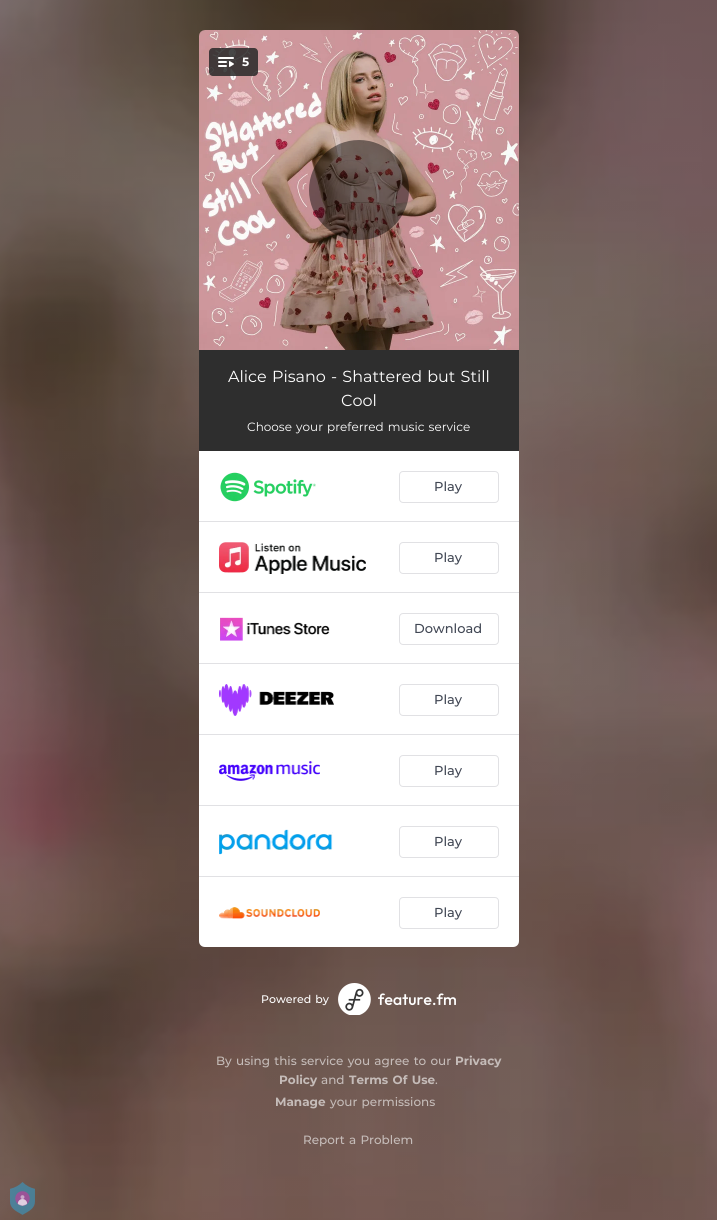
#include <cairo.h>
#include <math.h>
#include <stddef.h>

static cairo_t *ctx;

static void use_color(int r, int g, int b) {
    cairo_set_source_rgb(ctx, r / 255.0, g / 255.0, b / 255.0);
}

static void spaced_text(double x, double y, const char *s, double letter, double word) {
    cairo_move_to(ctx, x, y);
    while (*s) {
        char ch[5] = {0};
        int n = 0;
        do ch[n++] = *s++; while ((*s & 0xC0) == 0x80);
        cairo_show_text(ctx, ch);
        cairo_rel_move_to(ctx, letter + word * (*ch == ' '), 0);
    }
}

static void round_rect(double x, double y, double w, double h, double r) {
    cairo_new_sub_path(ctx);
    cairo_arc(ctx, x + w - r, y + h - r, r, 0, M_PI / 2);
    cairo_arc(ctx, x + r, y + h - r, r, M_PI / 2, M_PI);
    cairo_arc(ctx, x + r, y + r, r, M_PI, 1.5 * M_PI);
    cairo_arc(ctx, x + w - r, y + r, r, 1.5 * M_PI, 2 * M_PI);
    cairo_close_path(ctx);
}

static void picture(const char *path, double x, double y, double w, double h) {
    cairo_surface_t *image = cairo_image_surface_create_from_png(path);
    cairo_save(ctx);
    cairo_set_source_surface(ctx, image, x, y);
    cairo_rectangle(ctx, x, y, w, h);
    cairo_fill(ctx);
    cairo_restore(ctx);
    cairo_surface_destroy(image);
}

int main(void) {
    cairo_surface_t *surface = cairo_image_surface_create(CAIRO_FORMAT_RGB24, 717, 1220);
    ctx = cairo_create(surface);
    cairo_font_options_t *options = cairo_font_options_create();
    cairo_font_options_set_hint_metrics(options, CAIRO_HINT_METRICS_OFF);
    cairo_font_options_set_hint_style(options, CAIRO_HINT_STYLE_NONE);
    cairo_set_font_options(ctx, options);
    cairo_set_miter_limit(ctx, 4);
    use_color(255, 255, 255);
    cairo_paint(ctx);
    picture("img1.png", 0, 0, 717, 1220);
    picture("img2.png", 199, 30, 320, 320);
    cairo_set_source_rgba(ctx, 0.157, 0.157, 0.157, 0.85);
    round_rect(209, 48, 49, 28, 4);
    cairo_fill(ctx);
    picture("img3.png", 218, 57, 16, 10);
    cairo_select_font_face(ctx, "Montserrat", CAIRO_FONT_SLANT_NORMAL, CAIRO_FONT_WEIGHT_BOLD);
    cairo_set_font_size(ctx, 12);
    use_color(255, 255, 255);
    cairo_move_to(ctx, 242, 66);
    cairo_show_text(ctx, "5");
    cairo_set_source_rgba(ctx, 0, 0, 0, 0.45);
    cairo_new_path(ctx);
    cairo_arc(ctx, 359, 190, 50, 0, 2 * M_PI);
    cairo_fill(ctx);
    use_color(46, 46, 46);
    cairo_rectangle(ctx, 199, 350, 320, 101);
    cairo_fill(ctx);
    cairo_select_font_face(ctx, "Montserrat", CAIRO_FONT_SLANT_NORMAL, CAIRO_FONT_WEIGHT_NORMAL);
    cairo_set_font_size(ctx, 16);
    use_color(255, 255, 255);
    spaced_text(228, 382, "Alice Pisano - Shattered but Still", 0, 1);
    cairo_move_to(ctx, 341, 406);
    cairo_show_text(ctx, "Cool");
    cairo_set_font_size(ctx, 12);
    spaced_text(247, 431, "Choose your preferred music service", 0, 1);
    cairo_new_path(ctx);
    cairo_move_to(ctx, 199, 451);
    cairo_line_to(ctx, 519, 451);
    cairo_line_to(ctx, 519, 941);
    cairo_curve_to(ctx, 519, 944.5, 516.5, 947, 513, 947);
    cairo_line_to(ctx, 205, 947);
    cairo_curve_to(ctx, 201.5, 947, 199, 944.5, 199, 941);
    cairo_close_path(ctx);
    cairo_fill(ctx);
    use_color(225, 225, 228);
    cairo_rectangle(ctx, 199, 521, 320, 1);
    cairo_fill(ctx);
    picture("img4.png", 220, 472, 96, 30);
    round_rect(399.5, 471.5, 99, 31, 3.5);
    cairo_set_line_width(ctx, 1);
    cairo_stroke(ctx);
    cairo_select_font_face(ctx, "Montserrat Medium", CAIRO_FONT_SLANT_NORMAL, CAIRO_FONT_WEIGHT_NORMAL);
    cairo_set_font_size(ctx, 13);
    use_color(65, 71, 84);
    cairo_move_to(ctx, 434, 491);
    cairo_show_text(ctx, "Play");
    use_color(225, 225, 228);
    cairo_rectangle(ctx, 199, 592, 320, 1);
    cairo_fill(ctx);
    picture("img5.png", 219, 542, 147, 32);
    round_rect(399.5, 542.5, 99, 31, 3.5);
    cairo_stroke(ctx);
    use_color(65, 71, 84);
    cairo_move_to(ctx, 434, 562);
    cairo_show_text(ctx, "Play");
    use_color(225, 225, 228);
    cairo_rectangle(ctx, 199, 663, 320, 1);
    cairo_fill(ctx);
    picture("img6.png", 220, 617, 110, 24);
    round_rect(399.5, 613.5, 99, 31, 3.5);
    cairo_stroke(ctx);
    use_color(65, 71, 84);
    cairo_move_to(ctx, 414, 633);
    cairo_show_text(ctx, "Download");
    use_color(225, 225, 228);
    cairo_rectangle(ctx, 199, 734, 320, 1);
    cairo_fill(ctx);
    picture("img7.png", 219, 684, 115, 32);
    round_rect(399.5, 684.5, 99, 31, 3.5);
    cairo_stroke(ctx);
    use_color(65, 71, 84);
    cairo_move_to(ctx, 434, 704);
    cairo_show_text(ctx, "Play");
    use_color(225, 225, 228);
    cairo_rectangle(ctx, 199, 805, 320, 1);
    cairo_fill(ctx);
    picture("img8.png", 219, 761, 101, 20);
    round_rect(399.5, 755.5, 99, 31, 3.5);
    cairo_stroke(ctx);
    use_color(65, 71, 84);
    cairo_move_to(ctx, 434, 775);
    cairo_show_text(ctx, "Play");
    use_color(225, 225, 228);
    cairo_rectangle(ctx, 199, 876, 320, 1);
    cairo_fill(ctx);
    picture("img9.png", 219, 829, 114, 26);
    round_rect(399.5, 826.5, 99, 31, 3.5);
    cairo_stroke(ctx);
    use_color(65, 71, 84);
    cairo_move_to(ctx, 434, 846);
    cairo_show_text(ctx, "Play");
    picture("img10.png", 219, 907, 101, 12);
    round_rect(399.5, 897.5, 99, 31, 3.5);
    use_color(225, 225, 228);
    cairo_stroke(ctx);
    use_color(65, 71, 84);
    cairo_move_to(ctx, 434, 917);
    cairo_show_text(ctx, "Play");
    cairo_set_font_size(ctx, 11);
    use_color(255, 255, 255);
    spaced_text(261, 1003, "Powered by", 0, 1);
    picture("img11.png", 338, 983, 118, 32);
    cairo_set_font_size(ctx, 12);
    use_color(197, 188, 185);
    spaced_text(216, 1065, "By using this service you agree to our", 0, 1);
    cairo_select_font_face(ctx, "Montserrat", CAIRO_FONT_SLANT_NORMAL, CAIRO_FONT_WEIGHT_BOLD);
    cairo_move_to(ctx, 455, 1065);
    cairo_show_text(ctx, "Privacy");
    cairo_move_to(ctx, 279, 1084);
    cairo_show_text(ctx, "Policy");
    cairo_select_font_face(ctx, "Montserrat Medium", CAIRO_FONT_SLANT_NORMAL, CAIRO_FONT_WEIGHT_NORMAL);
    cairo_move_to(ctx, 321, 1084);
    cairo_show_text(ctx, "and");
    cairo_select_font_face(ctx, "Montserrat", CAIRO_FONT_SLANT_NORMAL, CAIRO_FONT_WEIGHT_BOLD);
    spaced_text(349, 1084, "Terms Of Use", 0, 1);
    cairo_select_font_face(ctx, "Montserrat Medium", CAIRO_FONT_SLANT_NORMAL, CAIRO_FONT_WEIGHT_NORMAL);
    cairo_move_to(ctx, 435, 1084);
    cairo_show_text(ctx, ".");
    cairo_select_font_face(ctx, "Montserrat", CAIRO_FONT_SLANT_NORMAL, CAIRO_FONT_WEIGHT_BOLD);
    cairo_move_to(ctx, 275, 1106);
    cairo_show_text(ctx, "Manage");
    cairo_select_font_face(ctx, "Montserrat Medium", CAIRO_FONT_SLANT_NORMAL, CAIRO_FONT_WEIGHT_NORMAL);
    spaced_text(330, 1106, "your permissions", 0, 1);
    spaced_text(303, 1144, "Report a Problem", 0, 1);
    picture("img12.png", 10, 1182, 25, 33);
    cairo_surface_write_to_png(surface, "result.png");
    cairo_font_options_destroy(options);
    cairo_destroy(ctx);
    cairo_surface_destroy(surface);
    return 0;
}
